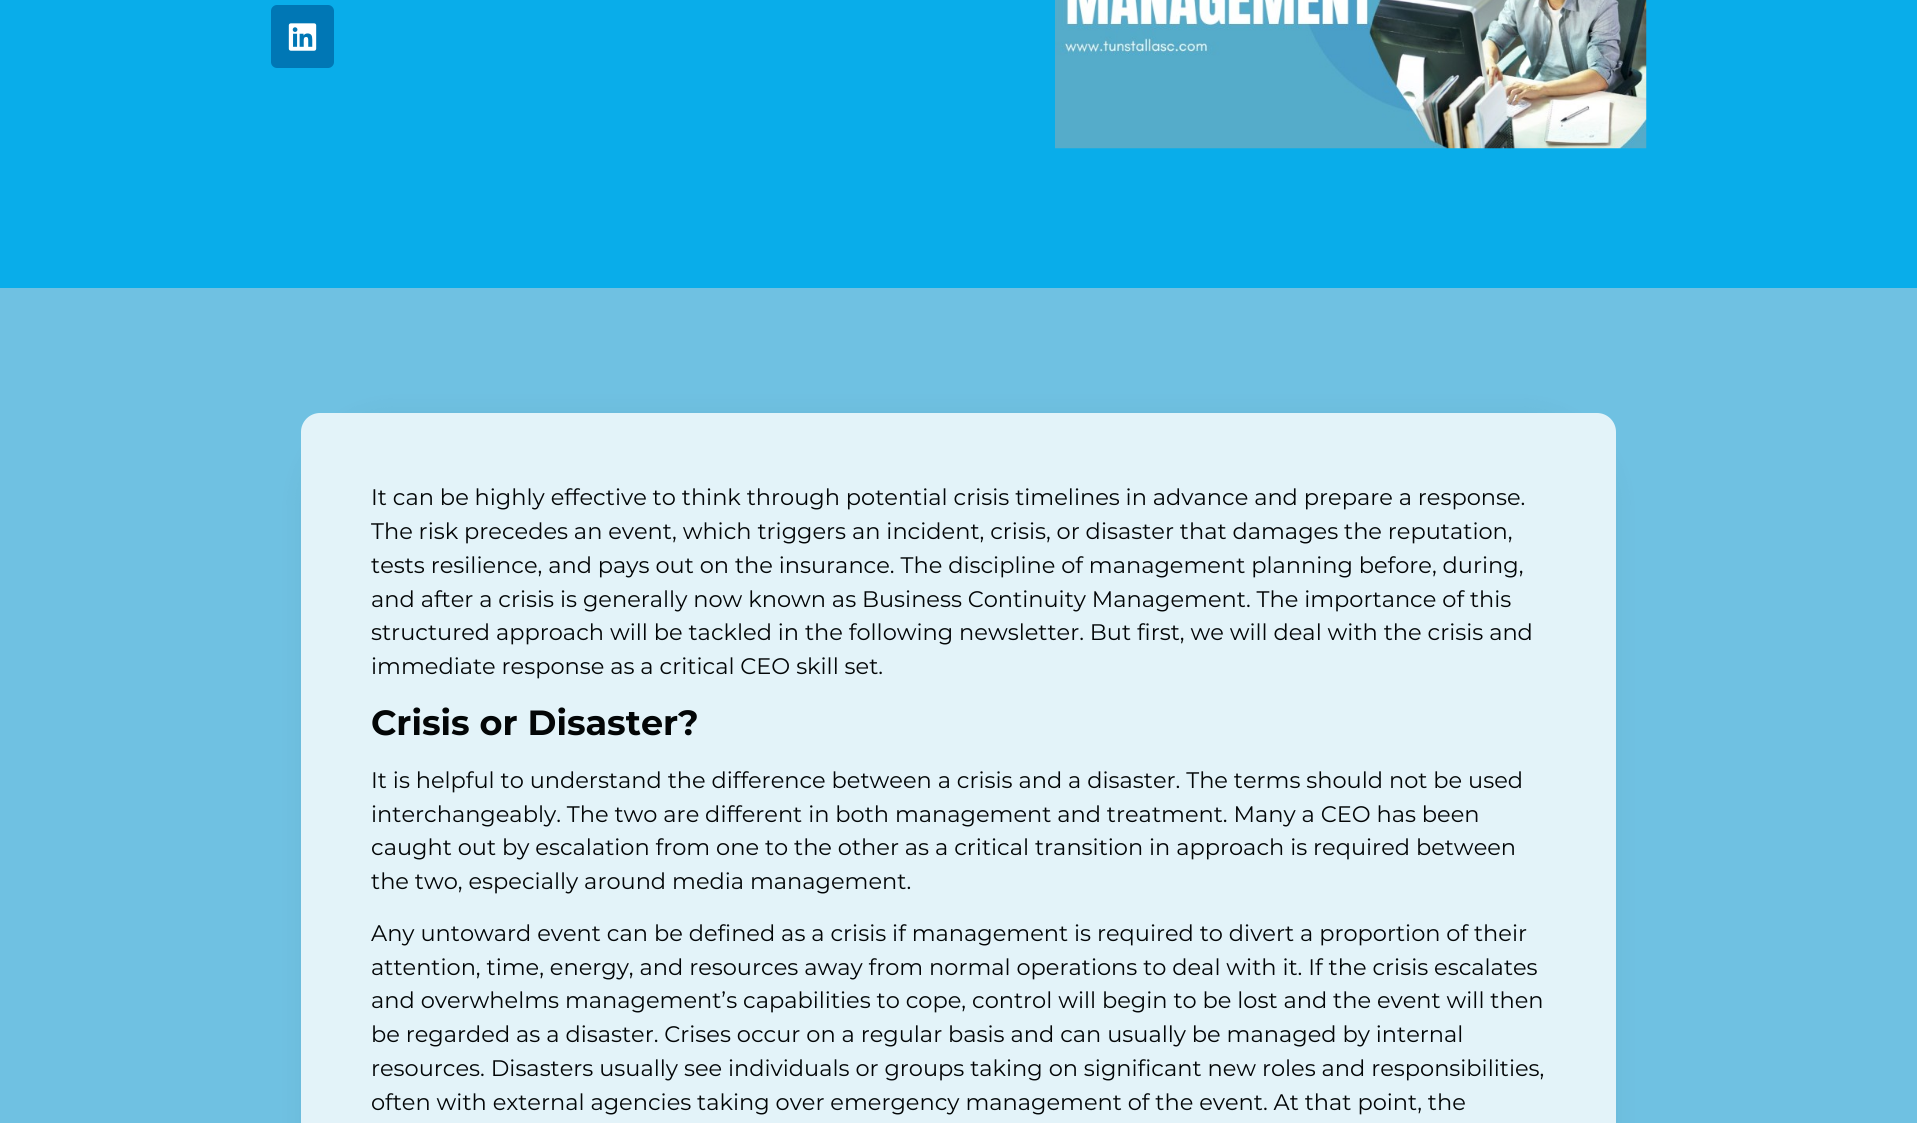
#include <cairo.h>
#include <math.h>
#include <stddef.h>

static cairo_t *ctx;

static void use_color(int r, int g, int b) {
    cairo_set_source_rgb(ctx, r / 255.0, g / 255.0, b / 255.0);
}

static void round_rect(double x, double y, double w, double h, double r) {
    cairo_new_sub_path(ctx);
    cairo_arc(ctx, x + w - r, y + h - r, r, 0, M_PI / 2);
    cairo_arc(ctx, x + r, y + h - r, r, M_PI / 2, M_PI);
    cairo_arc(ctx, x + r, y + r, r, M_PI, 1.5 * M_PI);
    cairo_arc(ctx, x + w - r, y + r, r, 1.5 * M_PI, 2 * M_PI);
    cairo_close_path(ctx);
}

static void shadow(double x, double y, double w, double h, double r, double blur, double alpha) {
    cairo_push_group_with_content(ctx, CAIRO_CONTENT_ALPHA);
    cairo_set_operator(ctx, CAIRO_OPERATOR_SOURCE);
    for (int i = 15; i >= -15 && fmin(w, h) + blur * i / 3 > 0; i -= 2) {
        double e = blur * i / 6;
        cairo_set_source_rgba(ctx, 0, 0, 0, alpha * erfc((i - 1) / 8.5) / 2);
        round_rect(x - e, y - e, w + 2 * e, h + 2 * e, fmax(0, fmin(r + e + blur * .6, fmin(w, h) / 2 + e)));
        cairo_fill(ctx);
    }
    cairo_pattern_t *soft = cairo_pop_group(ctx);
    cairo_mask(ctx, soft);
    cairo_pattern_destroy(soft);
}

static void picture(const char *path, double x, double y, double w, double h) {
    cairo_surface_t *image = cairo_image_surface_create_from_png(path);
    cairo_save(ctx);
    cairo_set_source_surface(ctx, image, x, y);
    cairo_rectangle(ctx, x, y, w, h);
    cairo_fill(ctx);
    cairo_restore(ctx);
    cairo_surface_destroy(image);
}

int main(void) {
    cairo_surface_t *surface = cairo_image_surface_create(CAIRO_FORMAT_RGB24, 1917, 1123);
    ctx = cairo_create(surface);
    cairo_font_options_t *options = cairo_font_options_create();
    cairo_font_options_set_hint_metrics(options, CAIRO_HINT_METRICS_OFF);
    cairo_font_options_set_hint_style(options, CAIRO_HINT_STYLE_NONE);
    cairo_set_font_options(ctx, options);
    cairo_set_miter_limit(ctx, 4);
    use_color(9, 173, 234);
    cairo_paint(ctx);
    use_color(0, 119, 181);
    round_rect(271, 5, 63, 63, 6);
    cairo_fill(ctx);
    picture("img1.png", 288, 23, 29, 28);
    picture("img2.png", 1055, 0, 592, 149);
    use_color(111, 193, 226);
    cairo_rectangle(ctx, 0, 288, 1917, 835);
    cairo_fill(ctx);
    use_color(3, 6, 7);
    shadow(301, 413, 1315, 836, 88, 12.5, 0.05);
    use_color(227, 243, 249);
    cairo_new_path(ctx);
    cairo_move_to(ctx, 320, 413);
    cairo_line_to(ctx, 1597, 413);
    cairo_curve_to(ctx, 1607.5, 413, 1616, 421.5, 1616, 432);
    cairo_line_to(ctx, 1616, 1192);
    cairo_curve_to(ctx, 1616, 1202.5, 1607.5, 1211, 1597, 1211);
    cairo_line_to(ctx, 389, 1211);
    cairo_curve_to(ctx, 340.5, 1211, 301, 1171.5, 301, 1123);
    cairo_line_to(ctx, 301, 432);
    cairo_curve_to(ctx, 301, 421.5, 309.5, 413, 320, 413);
    cairo_close_path(ctx);
    cairo_fill(ctx);
    cairo_select_font_face(ctx, "Montserrat", CAIRO_FONT_SLANT_NORMAL, CAIRO_FONT_WEIGHT_NORMAL);
    cairo_set_font_size(ctx, 22.5);
    use_color(3, 6, 7);
    cairo_move_to(ctx, 371, 505);
    cairo_show_text(ctx, "It can be highly effective to think through potential crisis timelines in advance and prepare a response.");
    cairo_move_to(ctx, 371, 539);
    cairo_show_text(ctx, "The risk precedes an event, which triggers an incident, crisis, or disaster that damages the reputation,");
    cairo_move_to(ctx, 371, 573);
    cairo_show_text(ctx, "tests resilience, and pays out on the insurance. The discipline of management planning before, during,");
    cairo_move_to(ctx, 371, 607);
    cairo_show_text(ctx, "and after a crisis is generally now known as Business Continuity Management. The importance of this");
    cairo_move_to(ctx, 371, 640);
    cairo_show_text(ctx, "structured approach will be tackled in the following newsletter. But first, we will deal with the crisis and");
    cairo_move_to(ctx, 371, 674);
    cairo_show_text(ctx, "immediate response as a critical CEO skill set.");
    cairo_select_font_face(ctx, "Montserrat", CAIRO_FONT_SLANT_NORMAL, CAIRO_FONT_WEIGHT_BOLD);
    cairo_set_font_size(ctx, 35);
    cairo_move_to(ctx, 371, 735);
    cairo_show_text(ctx, "Crisis or Disaster?");
    cairo_select_font_face(ctx, "Montserrat", CAIRO_FONT_SLANT_NORMAL, CAIRO_FONT_WEIGHT_NORMAL);
    cairo_set_font_size(ctx, 22.5);
    cairo_move_to(ctx, 371, 788);
    cairo_show_text(ctx, "It is helpful to understand the difference between a crisis and a disaster. The terms should not be used");
    cairo_move_to(ctx, 371, 822);
    cairo_show_text(ctx, "interchangeably. The two are different in both management and treatment. Many a CEO has been");
    cairo_move_to(ctx, 371, 855);
    cairo_show_text(ctx, "caught out by escalation from one to the other as a critical transition in approach is required between");
    cairo_move_to(ctx, 371, 889);
    cairo_show_text(ctx, "the two, especially around media management.");
    cairo_move_to(ctx, 371, 941);
    cairo_show_text(ctx, "Any untoward event can be defined as a crisis if management is required to divert a proportion of their");
    cairo_move_to(ctx, 371, 975);
    cairo_show_text(ctx, "attention, time, energy, and resources away from normal operations to deal with it. If the crisis escalates");
    cairo_move_to(ctx, 371, 1008);
    cairo_show_text(ctx, "and overwhelms management’s capabilities to cope, control will begin to be lost and the event will then");
    cairo_move_to(ctx, 371, 1042);
    cairo_show_text(ctx, "be regarded as a disaster. Crises occur on a regular basis and can usually be managed by internal");
    cairo_move_to(ctx, 371, 1076);
    cairo_show_text(ctx, "resources. Disasters usually see individuals or groups taking on significant new roles and responsibilities,");
    cairo_move_to(ctx, 371, 1110);
    cairo_show_text(ctx, "often with external agencies taking over emergency management of the event. At that point, the");
    cairo_surface_write_to_png(surface, "result.png");
    cairo_font_options_destroy(options);
    cairo_destroy(ctx);
    cairo_surface_destroy(surface);
    return 0;
}
